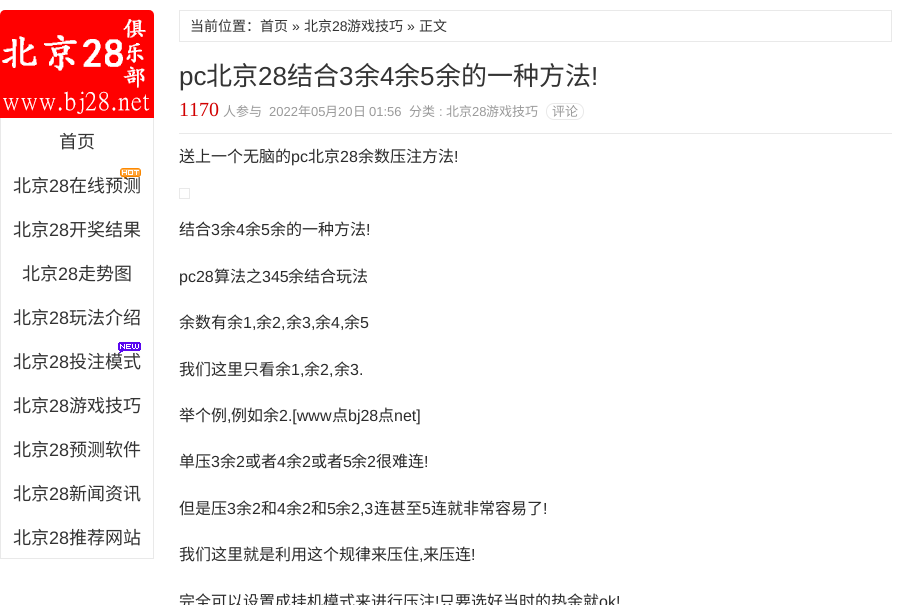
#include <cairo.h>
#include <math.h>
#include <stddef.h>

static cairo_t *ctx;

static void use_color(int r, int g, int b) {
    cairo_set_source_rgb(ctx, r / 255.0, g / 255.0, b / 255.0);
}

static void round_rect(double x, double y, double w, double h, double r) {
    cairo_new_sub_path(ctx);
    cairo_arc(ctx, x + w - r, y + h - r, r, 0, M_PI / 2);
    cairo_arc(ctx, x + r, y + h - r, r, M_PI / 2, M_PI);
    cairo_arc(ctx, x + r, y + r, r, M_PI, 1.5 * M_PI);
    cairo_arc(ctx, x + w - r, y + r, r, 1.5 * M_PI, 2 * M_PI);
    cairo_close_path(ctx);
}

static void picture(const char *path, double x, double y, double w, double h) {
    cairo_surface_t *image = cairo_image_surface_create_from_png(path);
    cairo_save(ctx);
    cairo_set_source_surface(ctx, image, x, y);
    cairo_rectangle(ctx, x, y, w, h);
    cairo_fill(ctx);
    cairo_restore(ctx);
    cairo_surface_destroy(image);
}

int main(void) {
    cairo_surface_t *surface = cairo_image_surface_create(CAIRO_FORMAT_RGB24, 914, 605);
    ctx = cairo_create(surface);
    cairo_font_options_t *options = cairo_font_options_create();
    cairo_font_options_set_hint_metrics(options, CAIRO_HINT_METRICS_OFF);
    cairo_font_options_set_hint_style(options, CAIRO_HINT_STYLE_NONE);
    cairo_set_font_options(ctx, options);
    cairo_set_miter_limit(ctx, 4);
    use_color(255, 255, 255);
    cairo_paint(ctx);
    picture("img1.png", 0, 10, 154, 108);
    use_color(233, 233, 233);
    cairo_rectangle(ctx, 153, 118, 1, 441);
    cairo_fill(ctx);
    cairo_rectangle(ctx, 0, 558, 154, 1);
    cairo_fill(ctx);
    cairo_rectangle(ctx, 0, 118, 1, 441);
    cairo_fill(ctx);
    cairo_select_font_face(ctx, "Noto Sans CJK SC", CAIRO_FONT_SLANT_NORMAL, CAIRO_FONT_WEIGHT_NORMAL);
    cairo_set_font_size(ctx, 18);
    use_color(51, 51, 51);
    cairo_move_to(ctx, 59, 148);
    cairo_show_text(ctx, "首页");
    picture("img2.png", 120, 168, 21, 11);
    cairo_move_to(ctx, 13, 192);
    cairo_show_text(ctx, "北京");
    cairo_select_font_face(ctx, "Liberation Sans", CAIRO_FONT_SLANT_NORMAL, CAIRO_FONT_WEIGHT_NORMAL);
    cairo_move_to(ctx, 49, 192);
    cairo_show_text(ctx, "28");
    cairo_select_font_face(ctx, "Noto Sans CJK SC", CAIRO_FONT_SLANT_NORMAL, CAIRO_FONT_WEIGHT_NORMAL);
    cairo_move_to(ctx, 69, 192);
    cairo_show_text(ctx, "在线预测");
    cairo_move_to(ctx, 13, 236);
    cairo_show_text(ctx, "北京");
    cairo_select_font_face(ctx, "Liberation Sans", CAIRO_FONT_SLANT_NORMAL, CAIRO_FONT_WEIGHT_NORMAL);
    cairo_move_to(ctx, 49, 236);
    cairo_show_text(ctx, "28");
    cairo_select_font_face(ctx, "Noto Sans CJK SC", CAIRO_FONT_SLANT_NORMAL, CAIRO_FONT_WEIGHT_NORMAL);
    cairo_move_to(ctx, 69, 236);
    cairo_show_text(ctx, "开奖结果");
    cairo_move_to(ctx, 22, 280);
    cairo_show_text(ctx, "北京");
    cairo_select_font_face(ctx, "Liberation Sans", CAIRO_FONT_SLANT_NORMAL, CAIRO_FONT_WEIGHT_NORMAL);
    cairo_move_to(ctx, 58, 280);
    cairo_show_text(ctx, "28");
    cairo_select_font_face(ctx, "Noto Sans CJK SC", CAIRO_FONT_SLANT_NORMAL, CAIRO_FONT_WEIGHT_NORMAL);
    cairo_move_to(ctx, 78, 280);
    cairo_show_text(ctx, "走势图");
    cairo_move_to(ctx, 13, 324);
    cairo_show_text(ctx, "北京");
    cairo_select_font_face(ctx, "Liberation Sans", CAIRO_FONT_SLANT_NORMAL, CAIRO_FONT_WEIGHT_NORMAL);
    cairo_move_to(ctx, 49, 324);
    cairo_show_text(ctx, "28");
    cairo_select_font_face(ctx, "Noto Sans CJK SC", CAIRO_FONT_SLANT_NORMAL, CAIRO_FONT_WEIGHT_NORMAL);
    cairo_move_to(ctx, 69, 324);
    cairo_show_text(ctx, "玩法介绍");
    picture("img3.png", 118, 342, 23, 11);
    cairo_move_to(ctx, 13, 368);
    cairo_show_text(ctx, "北京");
    cairo_select_font_face(ctx, "Liberation Sans", CAIRO_FONT_SLANT_NORMAL, CAIRO_FONT_WEIGHT_NORMAL);
    cairo_move_to(ctx, 49, 368);
    cairo_show_text(ctx, "28");
    cairo_select_font_face(ctx, "Noto Sans CJK SC", CAIRO_FONT_SLANT_NORMAL, CAIRO_FONT_WEIGHT_NORMAL);
    cairo_move_to(ctx, 69, 368);
    cairo_show_text(ctx, "投注模式");
    cairo_move_to(ctx, 13, 412);
    cairo_show_text(ctx, "北京");
    cairo_select_font_face(ctx, "Liberation Sans", CAIRO_FONT_SLANT_NORMAL, CAIRO_FONT_WEIGHT_NORMAL);
    cairo_move_to(ctx, 49, 412);
    cairo_show_text(ctx, "28");
    cairo_select_font_face(ctx, "Noto Sans CJK SC", CAIRO_FONT_SLANT_NORMAL, CAIRO_FONT_WEIGHT_NORMAL);
    cairo_move_to(ctx, 69, 412);
    cairo_show_text(ctx, "游戏技巧");
    cairo_move_to(ctx, 13, 456);
    cairo_show_text(ctx, "北京");
    cairo_select_font_face(ctx, "Liberation Sans", CAIRO_FONT_SLANT_NORMAL, CAIRO_FONT_WEIGHT_NORMAL);
    cairo_move_to(ctx, 49, 456);
    cairo_show_text(ctx, "28");
    cairo_select_font_face(ctx, "Noto Sans CJK SC", CAIRO_FONT_SLANT_NORMAL, CAIRO_FONT_WEIGHT_NORMAL);
    cairo_move_to(ctx, 69, 456);
    cairo_show_text(ctx, "预测软件");
    cairo_move_to(ctx, 13, 500);
    cairo_show_text(ctx, "北京");
    cairo_select_font_face(ctx, "Liberation Sans", CAIRO_FONT_SLANT_NORMAL, CAIRO_FONT_WEIGHT_NORMAL);
    cairo_move_to(ctx, 49, 500);
    cairo_show_text(ctx, "28");
    cairo_select_font_face(ctx, "Noto Sans CJK SC", CAIRO_FONT_SLANT_NORMAL, CAIRO_FONT_WEIGHT_NORMAL);
    cairo_move_to(ctx, 69, 500);
    cairo_show_text(ctx, "新闻资讯");
    cairo_move_to(ctx, 13, 544);
    cairo_show_text(ctx, "北京");
    cairo_select_font_face(ctx, "Liberation Sans", CAIRO_FONT_SLANT_NORMAL, CAIRO_FONT_WEIGHT_NORMAL);
    cairo_move_to(ctx, 49, 544);
    cairo_show_text(ctx, "28");
    cairo_select_font_face(ctx, "Noto Sans CJK SC", CAIRO_FONT_SLANT_NORMAL, CAIRO_FONT_WEIGHT_NORMAL);
    cairo_move_to(ctx, 69, 544);
    cairo_show_text(ctx, "推荐网站");
    cairo_rectangle(ctx, 179.5, 10.5, 712, 31);
    use_color(233, 233, 233);
    cairo_set_line_width(ctx, 1);
    cairo_stroke(ctx);
    cairo_set_font_size(ctx, 14);
    use_color(51, 51, 51);
    cairo_move_to(ctx, 190, 31);
    cairo_show_text(ctx, "当前位置：首页");
    cairo_select_font_face(ctx, "Liberation Sans", CAIRO_FONT_SLANT_NORMAL, CAIRO_FONT_WEIGHT_NORMAL);
    cairo_move_to(ctx, 292, 31);
    cairo_show_text(ctx, "»");
    cairo_select_font_face(ctx, "Noto Sans CJK SC", CAIRO_FONT_SLANT_NORMAL, CAIRO_FONT_WEIGHT_NORMAL);
    cairo_move_to(ctx, 304, 31);
    cairo_show_text(ctx, "北京");
    cairo_select_font_face(ctx, "Liberation Sans", CAIRO_FONT_SLANT_NORMAL, CAIRO_FONT_WEIGHT_NORMAL);
    cairo_move_to(ctx, 332, 31);
    cairo_show_text(ctx, "28");
    cairo_select_font_face(ctx, "Noto Sans CJK SC", CAIRO_FONT_SLANT_NORMAL, CAIRO_FONT_WEIGHT_NORMAL);
    cairo_move_to(ctx, 347, 31);
    cairo_show_text(ctx, "游戏技巧");
    cairo_select_font_face(ctx, "Liberation Sans", CAIRO_FONT_SLANT_NORMAL, CAIRO_FONT_WEIGHT_NORMAL);
    cairo_move_to(ctx, 407, 31);
    cairo_show_text(ctx, "»");
    cairo_select_font_face(ctx, "Noto Sans CJK SC", CAIRO_FONT_SLANT_NORMAL, CAIRO_FONT_WEIGHT_NORMAL);
    cairo_move_to(ctx, 419, 31);
    cairo_show_text(ctx, "正文");
    use_color(233, 233, 233);
    cairo_rectangle(ctx, 179, 133, 713, 1);
    cairo_fill(ctx);
    cairo_select_font_face(ctx, "Liberation Sans", CAIRO_FONT_SLANT_NORMAL, CAIRO_FONT_WEIGHT_NORMAL);
    cairo_set_font_size(ctx, 26);
    use_color(51, 51, 51);
    cairo_move_to(ctx, 179, 85);
    cairo_show_text(ctx, "pc");
    cairo_select_font_face(ctx, "Noto Sans CJK SC", CAIRO_FONT_SLANT_NORMAL, CAIRO_FONT_WEIGHT_NORMAL);
    cairo_move_to(ctx, 206, 85);
    cairo_show_text(ctx, "北京");
    cairo_select_font_face(ctx, "Liberation Sans", CAIRO_FONT_SLANT_NORMAL, CAIRO_FONT_WEIGHT_NORMAL);
    cairo_move_to(ctx, 258, 85);
    cairo_show_text(ctx, "28");
    cairo_select_font_face(ctx, "Noto Sans CJK SC", CAIRO_FONT_SLANT_NORMAL, CAIRO_FONT_WEIGHT_NORMAL);
    cairo_move_to(ctx, 287, 85);
    cairo_show_text(ctx, "结合");
    cairo_select_font_face(ctx, "Liberation Sans", CAIRO_FONT_SLANT_NORMAL, CAIRO_FONT_WEIGHT_NORMAL);
    cairo_move_to(ctx, 339, 85);
    cairo_show_text(ctx, "3");
    cairo_select_font_face(ctx, "Noto Sans CJK SC", CAIRO_FONT_SLANT_NORMAL, CAIRO_FONT_WEIGHT_NORMAL);
    cairo_move_to(ctx, 354, 85);
    cairo_show_text(ctx, "余");
    cairo_select_font_face(ctx, "Liberation Sans", CAIRO_FONT_SLANT_NORMAL, CAIRO_FONT_WEIGHT_NORMAL);
    cairo_move_to(ctx, 380, 85);
    cairo_show_text(ctx, "4");
    cairo_select_font_face(ctx, "Noto Sans CJK SC", CAIRO_FONT_SLANT_NORMAL, CAIRO_FONT_WEIGHT_NORMAL);
    cairo_move_to(ctx, 394, 85);
    cairo_show_text(ctx, "余");
    cairo_select_font_face(ctx, "Liberation Sans", CAIRO_FONT_SLANT_NORMAL, CAIRO_FONT_WEIGHT_NORMAL);
    cairo_move_to(ctx, 420, 85);
    cairo_show_text(ctx, "5");
    cairo_select_font_face(ctx, "Noto Sans CJK SC", CAIRO_FONT_SLANT_NORMAL, CAIRO_FONT_WEIGHT_NORMAL);
    cairo_move_to(ctx, 435, 85);
    cairo_show_text(ctx, "余的一种方法");
    cairo_select_font_face(ctx, "Liberation Sans", CAIRO_FONT_SLANT_NORMAL, CAIRO_FONT_WEIGHT_NORMAL);
    cairo_move_to(ctx, 591, 85);
    cairo_show_text(ctx, "!");
    cairo_select_font_face(ctx, "Liberation Serif", CAIRO_FONT_SLANT_NORMAL, CAIRO_FONT_WEIGHT_NORMAL);
    cairo_set_font_size(ctx, 20);
    use_color(209, 1, 1);
    cairo_move_to(ctx, 179, 116);
    cairo_show_text(ctx, "1170");
    cairo_select_font_face(ctx, "Noto Sans CJK SC", CAIRO_FONT_SLANT_NORMAL, CAIRO_FONT_WEIGHT_NORMAL);
    cairo_set_font_size(ctx, 13);
    use_color(153, 153, 153);
    cairo_move_to(ctx, 223, 116);
    cairo_show_text(ctx, "人参与");
    cairo_select_font_face(ctx, "Liberation Sans", CAIRO_FONT_SLANT_NORMAL, CAIRO_FONT_WEIGHT_NORMAL);
    cairo_move_to(ctx, 269, 116);
    cairo_show_text(ctx, "2022");
    cairo_select_font_face(ctx, "Noto Sans CJK SC", CAIRO_FONT_SLANT_NORMAL, CAIRO_FONT_WEIGHT_NORMAL);
    cairo_move_to(ctx, 298, 116);
    cairo_show_text(ctx, "年");
    cairo_select_font_face(ctx, "Liberation Sans", CAIRO_FONT_SLANT_NORMAL, CAIRO_FONT_WEIGHT_NORMAL);
    cairo_move_to(ctx, 311, 116);
    cairo_show_text(ctx, "05");
    cairo_select_font_face(ctx, "Noto Sans CJK SC", CAIRO_FONT_SLANT_NORMAL, CAIRO_FONT_WEIGHT_NORMAL);
    cairo_move_to(ctx, 325, 116);
    cairo_show_text(ctx, "月");
    cairo_select_font_face(ctx, "Liberation Sans", CAIRO_FONT_SLANT_NORMAL, CAIRO_FONT_WEIGHT_NORMAL);
    cairo_move_to(ctx, 338, 116);
    cairo_show_text(ctx, "20");
    cairo_select_font_face(ctx, "Noto Sans CJK SC", CAIRO_FONT_SLANT_NORMAL, CAIRO_FONT_WEIGHT_NORMAL);
    cairo_move_to(ctx, 353, 116);
    cairo_show_text(ctx, "日");
    cairo_select_font_face(ctx, "Liberation Sans", CAIRO_FONT_SLANT_NORMAL, CAIRO_FONT_WEIGHT_NORMAL);
    cairo_move_to(ctx, 369, 116);
    cairo_show_text(ctx, "01:56");
    cairo_select_font_face(ctx, "Noto Sans CJK SC", CAIRO_FONT_SLANT_NORMAL, CAIRO_FONT_WEIGHT_NORMAL);
    cairo_move_to(ctx, 409, 116);
    cairo_show_text(ctx, "分类");
    cairo_select_font_face(ctx, "Liberation Sans", CAIRO_FONT_SLANT_NORMAL, CAIRO_FONT_WEIGHT_NORMAL);
    cairo_move_to(ctx, 439, 116);
    cairo_show_text(ctx, ":");
    cairo_select_font_face(ctx, "Noto Sans CJK SC", CAIRO_FONT_SLANT_NORMAL, CAIRO_FONT_WEIGHT_NORMAL);
    cairo_move_to(ctx, 446, 116);
    cairo_show_text(ctx, "北京");
    cairo_select_font_face(ctx, "Liberation Sans", CAIRO_FONT_SLANT_NORMAL, CAIRO_FONT_WEIGHT_NORMAL);
    cairo_move_to(ctx, 472, 116);
    cairo_show_text(ctx, "28");
    cairo_select_font_face(ctx, "Noto Sans CJK SC", CAIRO_FONT_SLANT_NORMAL, CAIRO_FONT_WEIGHT_NORMAL);
    cairo_move_to(ctx, 486, 116);
    cairo_show_text(ctx, "游戏技巧");
    round_rect(546.5, 103.5, 37, 16, 7.5);
    use_color(233, 233, 233);
    cairo_stroke(ctx);
    use_color(153, 153, 153);
    cairo_move_to(ctx, 552, 116);
    cairo_show_text(ctx, "评论");
    cairo_set_font_size(ctx, 16);
    use_color(42, 42, 42);
    cairo_move_to(ctx, 179, 162);
    cairo_show_text(ctx, "送上一个无脑的");
    cairo_select_font_face(ctx, "Liberation Sans", CAIRO_FONT_SLANT_NORMAL, CAIRO_FONT_WEIGHT_NORMAL);
    cairo_move_to(ctx, 291, 162);
    cairo_show_text(ctx, "pc");
    cairo_select_font_face(ctx, "Noto Sans CJK SC", CAIRO_FONT_SLANT_NORMAL, CAIRO_FONT_WEIGHT_NORMAL);
    cairo_move_to(ctx, 308, 162);
    cairo_show_text(ctx, "北京");
    cairo_select_font_face(ctx, "Liberation Sans", CAIRO_FONT_SLANT_NORMAL, CAIRO_FONT_WEIGHT_NORMAL);
    cairo_move_to(ctx, 340, 162);
    cairo_show_text(ctx, "28");
    cairo_select_font_face(ctx, "Noto Sans CJK SC", CAIRO_FONT_SLANT_NORMAL, CAIRO_FONT_WEIGHT_NORMAL);
    cairo_move_to(ctx, 358, 162);
    cairo_show_text(ctx, "余数压注方法");
    cairo_select_font_face(ctx, "Liberation Sans", CAIRO_FONT_SLANT_NORMAL, CAIRO_FONT_WEIGHT_NORMAL);
    cairo_move_to(ctx, 454, 162);
    cairo_show_text(ctx, "!");
    cairo_rectangle(ctx, 179.5, 188.5, 10, 10);
    use_color(233, 233, 233);
    cairo_stroke(ctx);
    cairo_select_font_face(ctx, "Noto Sans CJK SC", CAIRO_FONT_SLANT_NORMAL, CAIRO_FONT_WEIGHT_NORMAL);
    use_color(42, 42, 42);
    cairo_move_to(ctx, 179, 235);
    cairo_show_text(ctx, "结合");
    cairo_select_font_face(ctx, "Liberation Sans", CAIRO_FONT_SLANT_NORMAL, CAIRO_FONT_WEIGHT_NORMAL);
    cairo_move_to(ctx, 211, 235);
    cairo_show_text(ctx, "3");
    cairo_select_font_face(ctx, "Noto Sans CJK SC", CAIRO_FONT_SLANT_NORMAL, CAIRO_FONT_WEIGHT_NORMAL);
    cairo_move_to(ctx, 220, 235);
    cairo_show_text(ctx, "余");
    cairo_select_font_face(ctx, "Liberation Sans", CAIRO_FONT_SLANT_NORMAL, CAIRO_FONT_WEIGHT_NORMAL);
    cairo_move_to(ctx, 236, 235);
    cairo_show_text(ctx, "4");
    cairo_select_font_face(ctx, "Noto Sans CJK SC", CAIRO_FONT_SLANT_NORMAL, CAIRO_FONT_WEIGHT_NORMAL);
    cairo_move_to(ctx, 245, 235);
    cairo_show_text(ctx, "余");
    cairo_select_font_face(ctx, "Liberation Sans", CAIRO_FONT_SLANT_NORMAL, CAIRO_FONT_WEIGHT_NORMAL);
    cairo_move_to(ctx, 261, 235);
    cairo_show_text(ctx, "5");
    cairo_select_font_face(ctx, "Noto Sans CJK SC", CAIRO_FONT_SLANT_NORMAL, CAIRO_FONT_WEIGHT_NORMAL);
    cairo_move_to(ctx, 270, 235);
    cairo_show_text(ctx, "余的一种方法");
    cairo_select_font_face(ctx, "Liberation Sans", CAIRO_FONT_SLANT_NORMAL, CAIRO_FONT_WEIGHT_NORMAL);
    cairo_move_to(ctx, 366, 235);
    cairo_show_text(ctx, "!");
    cairo_move_to(ctx, 179, 282);
    cairo_show_text(ctx, "pc28");
    cairo_select_font_face(ctx, "Noto Sans CJK SC", CAIRO_FONT_SLANT_NORMAL, CAIRO_FONT_WEIGHT_NORMAL);
    cairo_move_to(ctx, 214, 282);
    cairo_show_text(ctx, "算法之");
    cairo_select_font_face(ctx, "Liberation Sans", CAIRO_FONT_SLANT_NORMAL, CAIRO_FONT_WEIGHT_NORMAL);
    cairo_move_to(ctx, 262, 282);
    cairo_show_text(ctx, "345");
    cairo_select_font_face(ctx, "Noto Sans CJK SC", CAIRO_FONT_SLANT_NORMAL, CAIRO_FONT_WEIGHT_NORMAL);
    cairo_move_to(ctx, 288, 282);
    cairo_show_text(ctx, "余结合玩法");
    cairo_move_to(ctx, 179, 328);
    cairo_show_text(ctx, "余数有余");
    cairo_select_font_face(ctx, "Liberation Sans", CAIRO_FONT_SLANT_NORMAL, CAIRO_FONT_WEIGHT_NORMAL);
    cairo_move_to(ctx, 243, 328);
    cairo_show_text(ctx, "1,");
    cairo_select_font_face(ctx, "Noto Sans CJK SC", CAIRO_FONT_SLANT_NORMAL, CAIRO_FONT_WEIGHT_NORMAL);
    cairo_move_to(ctx, 256, 328);
    cairo_show_text(ctx, "余");
    cairo_select_font_face(ctx, "Liberation Sans", CAIRO_FONT_SLANT_NORMAL, CAIRO_FONT_WEIGHT_NORMAL);
    cairo_move_to(ctx, 272, 328);
    cairo_show_text(ctx, "2,");
    cairo_select_font_face(ctx, "Noto Sans CJK SC", CAIRO_FONT_SLANT_NORMAL, CAIRO_FONT_WEIGHT_NORMAL);
    cairo_move_to(ctx, 286, 328);
    cairo_show_text(ctx, "余");
    cairo_select_font_face(ctx, "Liberation Sans", CAIRO_FONT_SLANT_NORMAL, CAIRO_FONT_WEIGHT_NORMAL);
    cairo_move_to(ctx, 302, 328);
    cairo_show_text(ctx, "3,");
    cairo_select_font_face(ctx, "Noto Sans CJK SC", CAIRO_FONT_SLANT_NORMAL, CAIRO_FONT_WEIGHT_NORMAL);
    cairo_move_to(ctx, 315, 328);
    cairo_show_text(ctx, "余");
    cairo_select_font_face(ctx, "Liberation Sans", CAIRO_FONT_SLANT_NORMAL, CAIRO_FONT_WEIGHT_NORMAL);
    cairo_move_to(ctx, 331, 328);
    cairo_show_text(ctx, "4,");
    cairo_select_font_face(ctx, "Noto Sans CJK SC", CAIRO_FONT_SLANT_NORMAL, CAIRO_FONT_WEIGHT_NORMAL);
    cairo_move_to(ctx, 344, 328);
    cairo_show_text(ctx, "余");
    cairo_select_font_face(ctx, "Liberation Sans", CAIRO_FONT_SLANT_NORMAL, CAIRO_FONT_WEIGHT_NORMAL);
    cairo_move_to(ctx, 360, 328);
    cairo_show_text(ctx, "5");
    cairo_select_font_face(ctx, "Noto Sans CJK SC", CAIRO_FONT_SLANT_NORMAL, CAIRO_FONT_WEIGHT_NORMAL);
    cairo_move_to(ctx, 179, 375);
    cairo_show_text(ctx, "我们这里只看余");
    cairo_select_font_face(ctx, "Liberation Sans", CAIRO_FONT_SLANT_NORMAL, CAIRO_FONT_WEIGHT_NORMAL);
    cairo_move_to(ctx, 291, 375);
    cairo_show_text(ctx, "1,");
    cairo_select_font_face(ctx, "Noto Sans CJK SC", CAIRO_FONT_SLANT_NORMAL, CAIRO_FONT_WEIGHT_NORMAL);
    cairo_move_to(ctx, 304, 375);
    cairo_show_text(ctx, "余");
    cairo_select_font_face(ctx, "Liberation Sans", CAIRO_FONT_SLANT_NORMAL, CAIRO_FONT_WEIGHT_NORMAL);
    cairo_move_to(ctx, 320, 375);
    cairo_show_text(ctx, "2,");
    cairo_select_font_face(ctx, "Noto Sans CJK SC", CAIRO_FONT_SLANT_NORMAL, CAIRO_FONT_WEIGHT_NORMAL);
    cairo_move_to(ctx, 334, 375);
    cairo_show_text(ctx, "余");
    cairo_select_font_face(ctx, "Liberation Sans", CAIRO_FONT_SLANT_NORMAL, CAIRO_FONT_WEIGHT_NORMAL);
    cairo_move_to(ctx, 350, 375);
    cairo_show_text(ctx, "3.");
    cairo_select_font_face(ctx, "Noto Sans CJK SC", CAIRO_FONT_SLANT_NORMAL, CAIRO_FONT_WEIGHT_NORMAL);
    cairo_move_to(ctx, 179, 421);
    cairo_show_text(ctx, "举个例");
    cairo_select_font_face(ctx, "Liberation Sans", CAIRO_FONT_SLANT_NORMAL, CAIRO_FONT_WEIGHT_NORMAL);
    cairo_move_to(ctx, 227, 421);
    cairo_show_text(ctx, ",");
    cairo_select_font_face(ctx, "Noto Sans CJK SC", CAIRO_FONT_SLANT_NORMAL, CAIRO_FONT_WEIGHT_NORMAL);
    cairo_move_to(ctx, 231, 421);
    cairo_show_text(ctx, "例如余");
    cairo_select_font_face(ctx, "Liberation Sans", CAIRO_FONT_SLANT_NORMAL, CAIRO_FONT_WEIGHT_NORMAL);
    cairo_move_to(ctx, 279, 421);
    cairo_show_text(ctx, "2.[www");
    cairo_select_font_face(ctx, "Noto Sans CJK SC", CAIRO_FONT_SLANT_NORMAL, CAIRO_FONT_WEIGHT_NORMAL);
    cairo_move_to(ctx, 332, 421);
    cairo_show_text(ctx, "点");
    cairo_select_font_face(ctx, "Liberation Sans", CAIRO_FONT_SLANT_NORMAL, CAIRO_FONT_WEIGHT_NORMAL);
    cairo_move_to(ctx, 348, 421);
    cairo_show_text(ctx, "bj28");
    cairo_select_font_face(ctx, "Noto Sans CJK SC", CAIRO_FONT_SLANT_NORMAL, CAIRO_FONT_WEIGHT_NORMAL);
    cairo_move_to(ctx, 378, 421);
    cairo_show_text(ctx, "点");
    cairo_select_font_face(ctx, "Liberation Sans", CAIRO_FONT_SLANT_NORMAL, CAIRO_FONT_WEIGHT_NORMAL);
    cairo_move_to(ctx, 394, 421);
    cairo_show_text(ctx, "net]");
    cairo_select_font_face(ctx, "Noto Sans CJK SC", CAIRO_FONT_SLANT_NORMAL, CAIRO_FONT_WEIGHT_NORMAL);
    cairo_move_to(ctx, 179, 467);
    cairo_show_text(ctx, "单压");
    cairo_select_font_face(ctx, "Liberation Sans", CAIRO_FONT_SLANT_NORMAL, CAIRO_FONT_WEIGHT_NORMAL);
    cairo_move_to(ctx, 211, 467);
    cairo_show_text(ctx, "3");
    cairo_select_font_face(ctx, "Noto Sans CJK SC", CAIRO_FONT_SLANT_NORMAL, CAIRO_FONT_WEIGHT_NORMAL);
    cairo_move_to(ctx, 220, 467);
    cairo_show_text(ctx, "余");
    cairo_select_font_face(ctx, "Liberation Sans", CAIRO_FONT_SLANT_NORMAL, CAIRO_FONT_WEIGHT_NORMAL);
    cairo_move_to(ctx, 236, 467);
    cairo_show_text(ctx, "2");
    cairo_select_font_face(ctx, "Noto Sans CJK SC", CAIRO_FONT_SLANT_NORMAL, CAIRO_FONT_WEIGHT_NORMAL);
    cairo_move_to(ctx, 245, 467);
    cairo_show_text(ctx, "或者");
    cairo_select_font_face(ctx, "Liberation Sans", CAIRO_FONT_SLANT_NORMAL, CAIRO_FONT_WEIGHT_NORMAL);
    cairo_move_to(ctx, 277, 467);
    cairo_show_text(ctx, "4");
    cairo_select_font_face(ctx, "Noto Sans CJK SC", CAIRO_FONT_SLANT_NORMAL, CAIRO_FONT_WEIGHT_NORMAL);
    cairo_move_to(ctx, 286, 467);
    cairo_show_text(ctx, "余");
    cairo_select_font_face(ctx, "Liberation Sans", CAIRO_FONT_SLANT_NORMAL, CAIRO_FONT_WEIGHT_NORMAL);
    cairo_move_to(ctx, 302, 467);
    cairo_show_text(ctx, "2");
    cairo_select_font_face(ctx, "Noto Sans CJK SC", CAIRO_FONT_SLANT_NORMAL, CAIRO_FONT_WEIGHT_NORMAL);
    cairo_move_to(ctx, 311, 467);
    cairo_show_text(ctx, "或者");
    cairo_select_font_face(ctx, "Liberation Sans", CAIRO_FONT_SLANT_NORMAL, CAIRO_FONT_WEIGHT_NORMAL);
    cairo_move_to(ctx, 343, 467);
    cairo_show_text(ctx, "5");
    cairo_select_font_face(ctx, "Noto Sans CJK SC", CAIRO_FONT_SLANT_NORMAL, CAIRO_FONT_WEIGHT_NORMAL);
    cairo_move_to(ctx, 351, 467);
    cairo_show_text(ctx, "余");
    cairo_select_font_face(ctx, "Liberation Sans", CAIRO_FONT_SLANT_NORMAL, CAIRO_FONT_WEIGHT_NORMAL);
    cairo_move_to(ctx, 367, 467);
    cairo_show_text(ctx, "2");
    cairo_select_font_face(ctx, "Noto Sans CJK SC", CAIRO_FONT_SLANT_NORMAL, CAIRO_FONT_WEIGHT_NORMAL);
    cairo_move_to(ctx, 376, 467);
    cairo_show_text(ctx, "很难连");
    cairo_select_font_face(ctx, "Liberation Sans", CAIRO_FONT_SLANT_NORMAL, CAIRO_FONT_WEIGHT_NORMAL);
    cairo_move_to(ctx, 424, 467);
    cairo_show_text(ctx, "!");
    cairo_select_font_face(ctx, "Noto Sans CJK SC", CAIRO_FONT_SLANT_NORMAL, CAIRO_FONT_WEIGHT_NORMAL);
    cairo_move_to(ctx, 179, 514);
    cairo_show_text(ctx, "但是压");
    cairo_select_font_face(ctx, "Liberation Sans", CAIRO_FONT_SLANT_NORMAL, CAIRO_FONT_WEIGHT_NORMAL);
    cairo_move_to(ctx, 227, 514);
    cairo_show_text(ctx, "3");
    cairo_select_font_face(ctx, "Noto Sans CJK SC", CAIRO_FONT_SLANT_NORMAL, CAIRO_FONT_WEIGHT_NORMAL);
    cairo_move_to(ctx, 236, 514);
    cairo_show_text(ctx, "余");
    cairo_select_font_face(ctx, "Liberation Sans", CAIRO_FONT_SLANT_NORMAL, CAIRO_FONT_WEIGHT_NORMAL);
    cairo_move_to(ctx, 252, 514);
    cairo_show_text(ctx, "2");
    cairo_select_font_face(ctx, "Noto Sans CJK SC", CAIRO_FONT_SLANT_NORMAL, CAIRO_FONT_WEIGHT_NORMAL);
    cairo_move_to(ctx, 261, 514);
    cairo_show_text(ctx, "和");
    cairo_select_font_face(ctx, "Liberation Sans", CAIRO_FONT_SLANT_NORMAL, CAIRO_FONT_WEIGHT_NORMAL);
    cairo_move_to(ctx, 277, 514);
    cairo_show_text(ctx, "4");
    cairo_select_font_face(ctx, "Noto Sans CJK SC", CAIRO_FONT_SLANT_NORMAL, CAIRO_FONT_WEIGHT_NORMAL);
    cairo_move_to(ctx, 286, 514);
    cairo_show_text(ctx, "余");
    cairo_select_font_face(ctx, "Liberation Sans", CAIRO_FONT_SLANT_NORMAL, CAIRO_FONT_WEIGHT_NORMAL);
    cairo_move_to(ctx, 302, 514);
    cairo_show_text(ctx, "2");
    cairo_select_font_face(ctx, "Noto Sans CJK SC", CAIRO_FONT_SLANT_NORMAL, CAIRO_FONT_WEIGHT_NORMAL);
    cairo_move_to(ctx, 311, 514);
    cairo_show_text(ctx, "和");
    cairo_select_font_face(ctx, "Liberation Sans", CAIRO_FONT_SLANT_NORMAL, CAIRO_FONT_WEIGHT_NORMAL);
    cairo_move_to(ctx, 327, 514);
    cairo_show_text(ctx, "5");
    cairo_select_font_face(ctx, "Noto Sans CJK SC", CAIRO_FONT_SLANT_NORMAL, CAIRO_FONT_WEIGHT_NORMAL);
    cairo_move_to(ctx, 335, 514);
    cairo_show_text(ctx, "余");
    cairo_select_font_face(ctx, "Liberation Sans", CAIRO_FONT_SLANT_NORMAL, CAIRO_FONT_WEIGHT_NORMAL);
    cairo_move_to(ctx, 351, 514);
    cairo_show_text(ctx, "2,3");
    cairo_select_font_face(ctx, "Noto Sans CJK SC", CAIRO_FONT_SLANT_NORMAL, CAIRO_FONT_WEIGHT_NORMAL);
    cairo_move_to(ctx, 374, 514);
    cairo_show_text(ctx, "连甚至");
    cairo_select_font_face(ctx, "Liberation Sans", CAIRO_FONT_SLANT_NORMAL, CAIRO_FONT_WEIGHT_NORMAL);
    cairo_move_to(ctx, 422, 514);
    cairo_show_text(ctx, "5");
    cairo_select_font_face(ctx, "Noto Sans CJK SC", CAIRO_FONT_SLANT_NORMAL, CAIRO_FONT_WEIGHT_NORMAL);
    cairo_move_to(ctx, 431, 514);
    cairo_show_text(ctx, "连就非常容易了");
    cairo_select_font_face(ctx, "Liberation Sans", CAIRO_FONT_SLANT_NORMAL, CAIRO_FONT_WEIGHT_NORMAL);
    cairo_move_to(ctx, 543, 514);
    cairo_show_text(ctx, "!");
    cairo_select_font_face(ctx, "Noto Sans CJK SC", CAIRO_FONT_SLANT_NORMAL, CAIRO_FONT_WEIGHT_NORMAL);
    cairo_move_to(ctx, 179, 560);
    cairo_show_text(ctx, "我们这里就是利用这个规律来压住");
    cairo_move_to(ctx, 423, 560);
    cairo_show_text(ctx, "来压连");
    cairo_select_font_face(ctx, "Liberation Sans", CAIRO_FONT_SLANT_NORMAL, CAIRO_FONT_WEIGHT_NORMAL);
    cairo_move_to(ctx, 471, 560);
    cairo_show_text(ctx, "!");
    cairo_move_to(ctx, 419, 560);
    cairo_show_text(ctx, ",");
    cairo_select_font_face(ctx, "Noto Sans CJK SC", CAIRO_FONT_SLANT_NORMAL, CAIRO_FONT_WEIGHT_NORMAL);
    cairo_move_to(ctx, 179, 607);
    cairo_show_text(ctx, "完全可以设置成挂机模式来进行压注");
    cairo_select_font_face(ctx, "Liberation Sans", CAIRO_FONT_SLANT_NORMAL, CAIRO_FONT_WEIGHT_NORMAL);
    cairo_move_to(ctx, 435, 607);
    cairo_show_text(ctx, "!");
    cairo_select_font_face(ctx, "Noto Sans CJK SC", CAIRO_FONT_SLANT_NORMAL, CAIRO_FONT_WEIGHT_NORMAL);
    cairo_move_to(ctx, 439, 607);
    cairo_show_text(ctx, "只要选好当时的热余就");
    cairo_select_font_face(ctx, "Liberation Sans", CAIRO_FONT_SLANT_NORMAL, CAIRO_FONT_WEIGHT_NORMAL);
    cairo_move_to(ctx, 599, 607);
    cairo_show_text(ctx, "ok!");
    cairo_surface_write_to_png(surface, "result.png");
    cairo_font_options_destroy(options);
    cairo_destroy(ctx);
    cairo_surface_destroy(surface);
    return 0;
}
